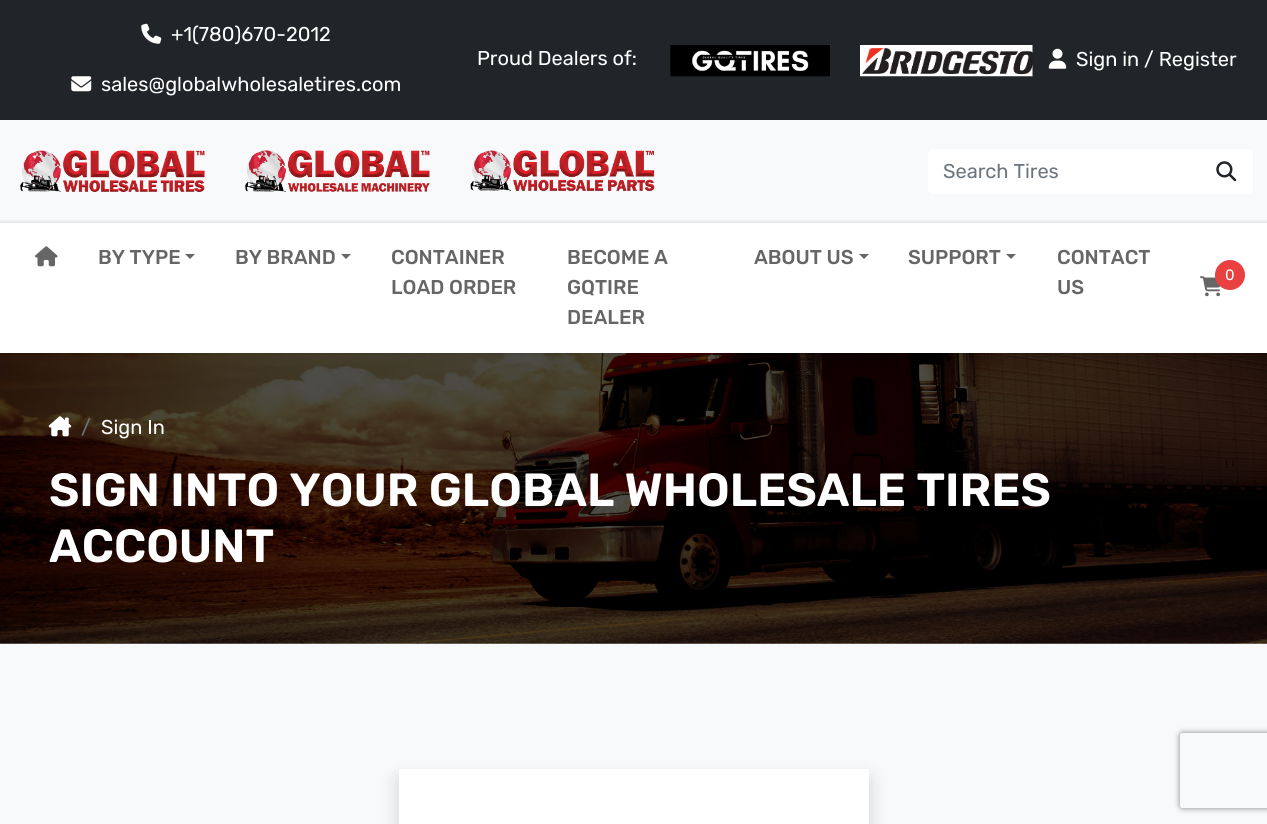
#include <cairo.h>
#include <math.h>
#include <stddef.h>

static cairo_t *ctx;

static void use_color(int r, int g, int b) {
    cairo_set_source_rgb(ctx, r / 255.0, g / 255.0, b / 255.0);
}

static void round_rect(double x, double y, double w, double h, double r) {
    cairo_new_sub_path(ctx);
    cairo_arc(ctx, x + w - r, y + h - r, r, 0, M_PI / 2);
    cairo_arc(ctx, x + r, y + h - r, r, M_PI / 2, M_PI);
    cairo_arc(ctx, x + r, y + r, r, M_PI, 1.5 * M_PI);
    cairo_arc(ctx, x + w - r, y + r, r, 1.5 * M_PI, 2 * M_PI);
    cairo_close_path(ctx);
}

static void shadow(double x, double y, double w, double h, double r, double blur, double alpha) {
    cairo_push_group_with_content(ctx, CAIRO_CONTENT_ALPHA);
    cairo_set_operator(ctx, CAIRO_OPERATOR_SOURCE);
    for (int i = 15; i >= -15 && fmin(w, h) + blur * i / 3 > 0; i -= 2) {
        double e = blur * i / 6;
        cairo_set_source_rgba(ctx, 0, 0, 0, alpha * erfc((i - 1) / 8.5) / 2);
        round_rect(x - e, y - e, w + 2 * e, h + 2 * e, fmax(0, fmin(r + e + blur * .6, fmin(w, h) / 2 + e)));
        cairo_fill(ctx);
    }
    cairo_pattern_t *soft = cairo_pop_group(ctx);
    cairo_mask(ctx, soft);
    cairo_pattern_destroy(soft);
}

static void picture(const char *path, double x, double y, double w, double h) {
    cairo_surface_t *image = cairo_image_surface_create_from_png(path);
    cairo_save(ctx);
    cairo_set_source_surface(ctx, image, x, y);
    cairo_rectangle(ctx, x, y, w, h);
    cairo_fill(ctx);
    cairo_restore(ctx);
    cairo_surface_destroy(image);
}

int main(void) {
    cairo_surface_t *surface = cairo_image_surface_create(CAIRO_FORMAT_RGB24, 1267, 824);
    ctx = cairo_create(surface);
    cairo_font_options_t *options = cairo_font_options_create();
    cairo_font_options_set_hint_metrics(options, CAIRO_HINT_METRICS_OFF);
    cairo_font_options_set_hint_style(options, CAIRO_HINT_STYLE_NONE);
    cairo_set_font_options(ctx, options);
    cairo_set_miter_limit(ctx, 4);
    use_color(255, 255, 255);
    cairo_paint(ctx);
    use_color(33, 37, 41);
    cairo_rectangle(ctx, 0, 0, 1267, 120);
    cairo_fill(ctx);
    picture("img1.png", 141, 23, 21, 21);
    cairo_select_font_face(ctx, "Rubik", CAIRO_FONT_SLANT_NORMAL, CAIRO_FONT_WEIGHT_NORMAL);
    cairo_set_font_size(ctx, 20);
    use_color(255, 255, 255);
    cairo_move_to(ctx, 171, 41);
    cairo_show_text(ctx, "+1(780)670-2012");
    picture("img2.png", 71, 76, 21, 16);
    cairo_move_to(ctx, 101, 91);
    cairo_show_text(ctx, "sales@globalwholesaletires.com");
    cairo_move_to(ctx, 477, 65);
    cairo_show_text(ctx, "Proud Dealers of:");
    picture("img3.png", 670, 45, 160, 32);
    picture("img4.png", 860, 45, 173, 32);
    picture("img5.png", 1048, 48, 19, 21);
    cairo_move_to(ctx, 1076, 66);
    cairo_show_text(ctx, "Sign in / Register");
    use_color(248, 249, 250);
    cairo_rectangle(ctx, 0, 120, 1267, 103);
    cairo_fill(ctx);
    picture("img6.png", 20, 150, 185, 42);
    picture("img7.png", 245, 150, 185, 42);
    picture("img8.png", 470, 150, 185, 42);
    use_color(255, 255, 255);
    round_rect(928, 149, 325, 45, 5);
    cairo_fill(ctx);
    use_color(108, 117, 125);
    cairo_move_to(ctx, 943, 178);
    cairo_show_text(ctx, "Search Tires");
    picture("img9.png", 1216, 161, 21, 21);
    picture("img12.png", 0, 353, 1267, 291);
    use_color(0, 0, 0);
    shadow(0, 223, 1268, 130, 0, 2, 0.2);
    use_color(255, 255, 255);
    cairo_rectangle(ctx, 0, 223, 1267, 130);
    cairo_fill(ctx);
    picture("img10.png", 35, 246, 23, 21);
    cairo_select_font_face(ctx, "Rubik Medium", CAIRO_FONT_SLANT_NORMAL, CAIRO_FONT_WEIGHT_NORMAL);
    use_color(102, 102, 102);
    cairo_move_to(ctx, 98, 264);
    cairo_show_text(ctx, "BY TYPE");
    cairo_new_path(ctx);
    cairo_move_to(ctx, 185, 254);
    cairo_line_to(ctx, 195, 254);
    cairo_line_to(ctx, 190, 259);
    cairo_close_path(ctx);
    cairo_fill(ctx);
    cairo_move_to(ctx, 235, 264);
    cairo_show_text(ctx, "BY BRAND");
    cairo_new_path(ctx);
    cairo_move_to(ctx, 341, 254);
    cairo_line_to(ctx, 351, 254);
    cairo_line_to(ctx, 346, 259);
    cairo_close_path(ctx);
    cairo_fill(ctx);
    cairo_move_to(ctx, 391, 264);
    cairo_show_text(ctx, "CONTAINER");
    cairo_move_to(ctx, 391, 294);
    cairo_show_text(ctx, "LOAD ORDER");
    cairo_move_to(ctx, 567, 264);
    cairo_show_text(ctx, "BECOME A");
    cairo_move_to(ctx, 567, 294);
    cairo_show_text(ctx, "GQTIRE");
    cairo_move_to(ctx, 567, 324);
    cairo_show_text(ctx, "DEALER");
    cairo_move_to(ctx, 754, 264);
    cairo_show_text(ctx, "ABOUT US");
    cairo_new_path(ctx);
    cairo_move_to(ctx, 859, 254);
    cairo_line_to(ctx, 869, 254);
    cairo_line_to(ctx, 864, 259);
    cairo_close_path(ctx);
    cairo_fill(ctx);
    cairo_move_to(ctx, 908, 264);
    cairo_show_text(ctx, "SUPPORT");
    cairo_new_path(ctx);
    cairo_move_to(ctx, 1006, 254);
    cairo_line_to(ctx, 1016, 254);
    cairo_line_to(ctx, 1011, 259);
    cairo_close_path(ctx);
    cairo_fill(ctx);
    cairo_move_to(ctx, 1057, 264);
    cairo_show_text(ctx, "CONTACT");
    cairo_move_to(ctx, 1057, 294);
    cairo_show_text(ctx, "US");
    picture("img11.png", 1200, 276, 21, 21);
    use_color(233, 65, 65);
    cairo_arc(ctx, 1230, 275, 15, 0, 2 * M_PI);
    cairo_fill(ctx);
    cairo_select_font_face(ctx, "Rubik", CAIRO_FONT_SLANT_NORMAL, CAIRO_FONT_WEIGHT_NORMAL);
    cairo_set_font_size(ctx, 15);
    use_color(255, 255, 255);
    cairo_move_to(ctx, 1225, 280);
    cairo_show_text(ctx, "0");
    picture("img13.png", 48, 416, 24, 21);
    cairo_set_font_size(ctx, 20);
    use_color(108, 117, 125);
    cairo_move_to(ctx, 81, 434);
    cairo_show_text(ctx, "/");
    use_color(255, 255, 255);
    cairo_move_to(ctx, 101, 434);
    cairo_show_text(ctx, "Sign In");
    cairo_select_font_face(ctx, "Rubik SemiBold", CAIRO_FONT_SLANT_NORMAL, CAIRO_FONT_WEIGHT_NORMAL);
    cairo_set_font_size(ctx, 46.5);
    cairo_move_to(ctx, 49, 506);
    cairo_show_text(ctx, "SIGN INTO YOUR GLOBAL WHOLESALE TIRES");
    cairo_move_to(ctx, 49, 562);
    cairo_show_text(ctx, "ACCOUNT");
    use_color(248, 249, 250);
    cairo_rectangle(ctx, 0, 644, 1267, 180);
    cairo_fill(ctx);
    use_color(0, 0, 0);
    shadow(399, 779, 470, 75, 0, 10, 0.15);
    use_color(255, 255, 255);
    cairo_rectangle(ctx, 399, 769, 470, 55);
    cairo_fill(ctx);
    cairo_save(ctx);
    cairo_set_fill_rule(ctx, CAIRO_FILL_RULE_EVEN_ODD);
    cairo_new_path(ctx);
    cairo_move_to(ctx, 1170, 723);
    cairo_line_to(ctx, 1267, 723);
    cairo_line_to(ctx, 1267, 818);
    cairo_line_to(ctx, 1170, 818);
    cairo_close_path(ctx);
    cairo_move_to(ctx, 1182.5, 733);
    cairo_line_to(ctx, 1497.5, 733);
    cairo_curve_to(ctx, 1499, 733, 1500, 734, 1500, 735.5);
    cairo_line_to(ctx, 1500, 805.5);
    cairo_curve_to(ctx, 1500, 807, 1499, 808, 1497.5, 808);
    cairo_line_to(ctx, 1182.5, 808);
    cairo_curve_to(ctx, 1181, 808, 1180, 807, 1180, 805.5);
    cairo_line_to(ctx, 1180, 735.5);
    cairo_curve_to(ctx, 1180, 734, 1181, 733, 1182.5, 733);
    cairo_close_path(ctx);
    cairo_clip(ctx);
    use_color(128, 128, 128);
    shadow(1180, 733, 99, 75, 2.5, 3, 1);
    cairo_restore(ctx);
    cairo_surface_write_to_png(surface, "result.png");
    cairo_font_options_destroy(options);
    cairo_destroy(ctx);
    cairo_surface_destroy(surface);
    return 0;
}
